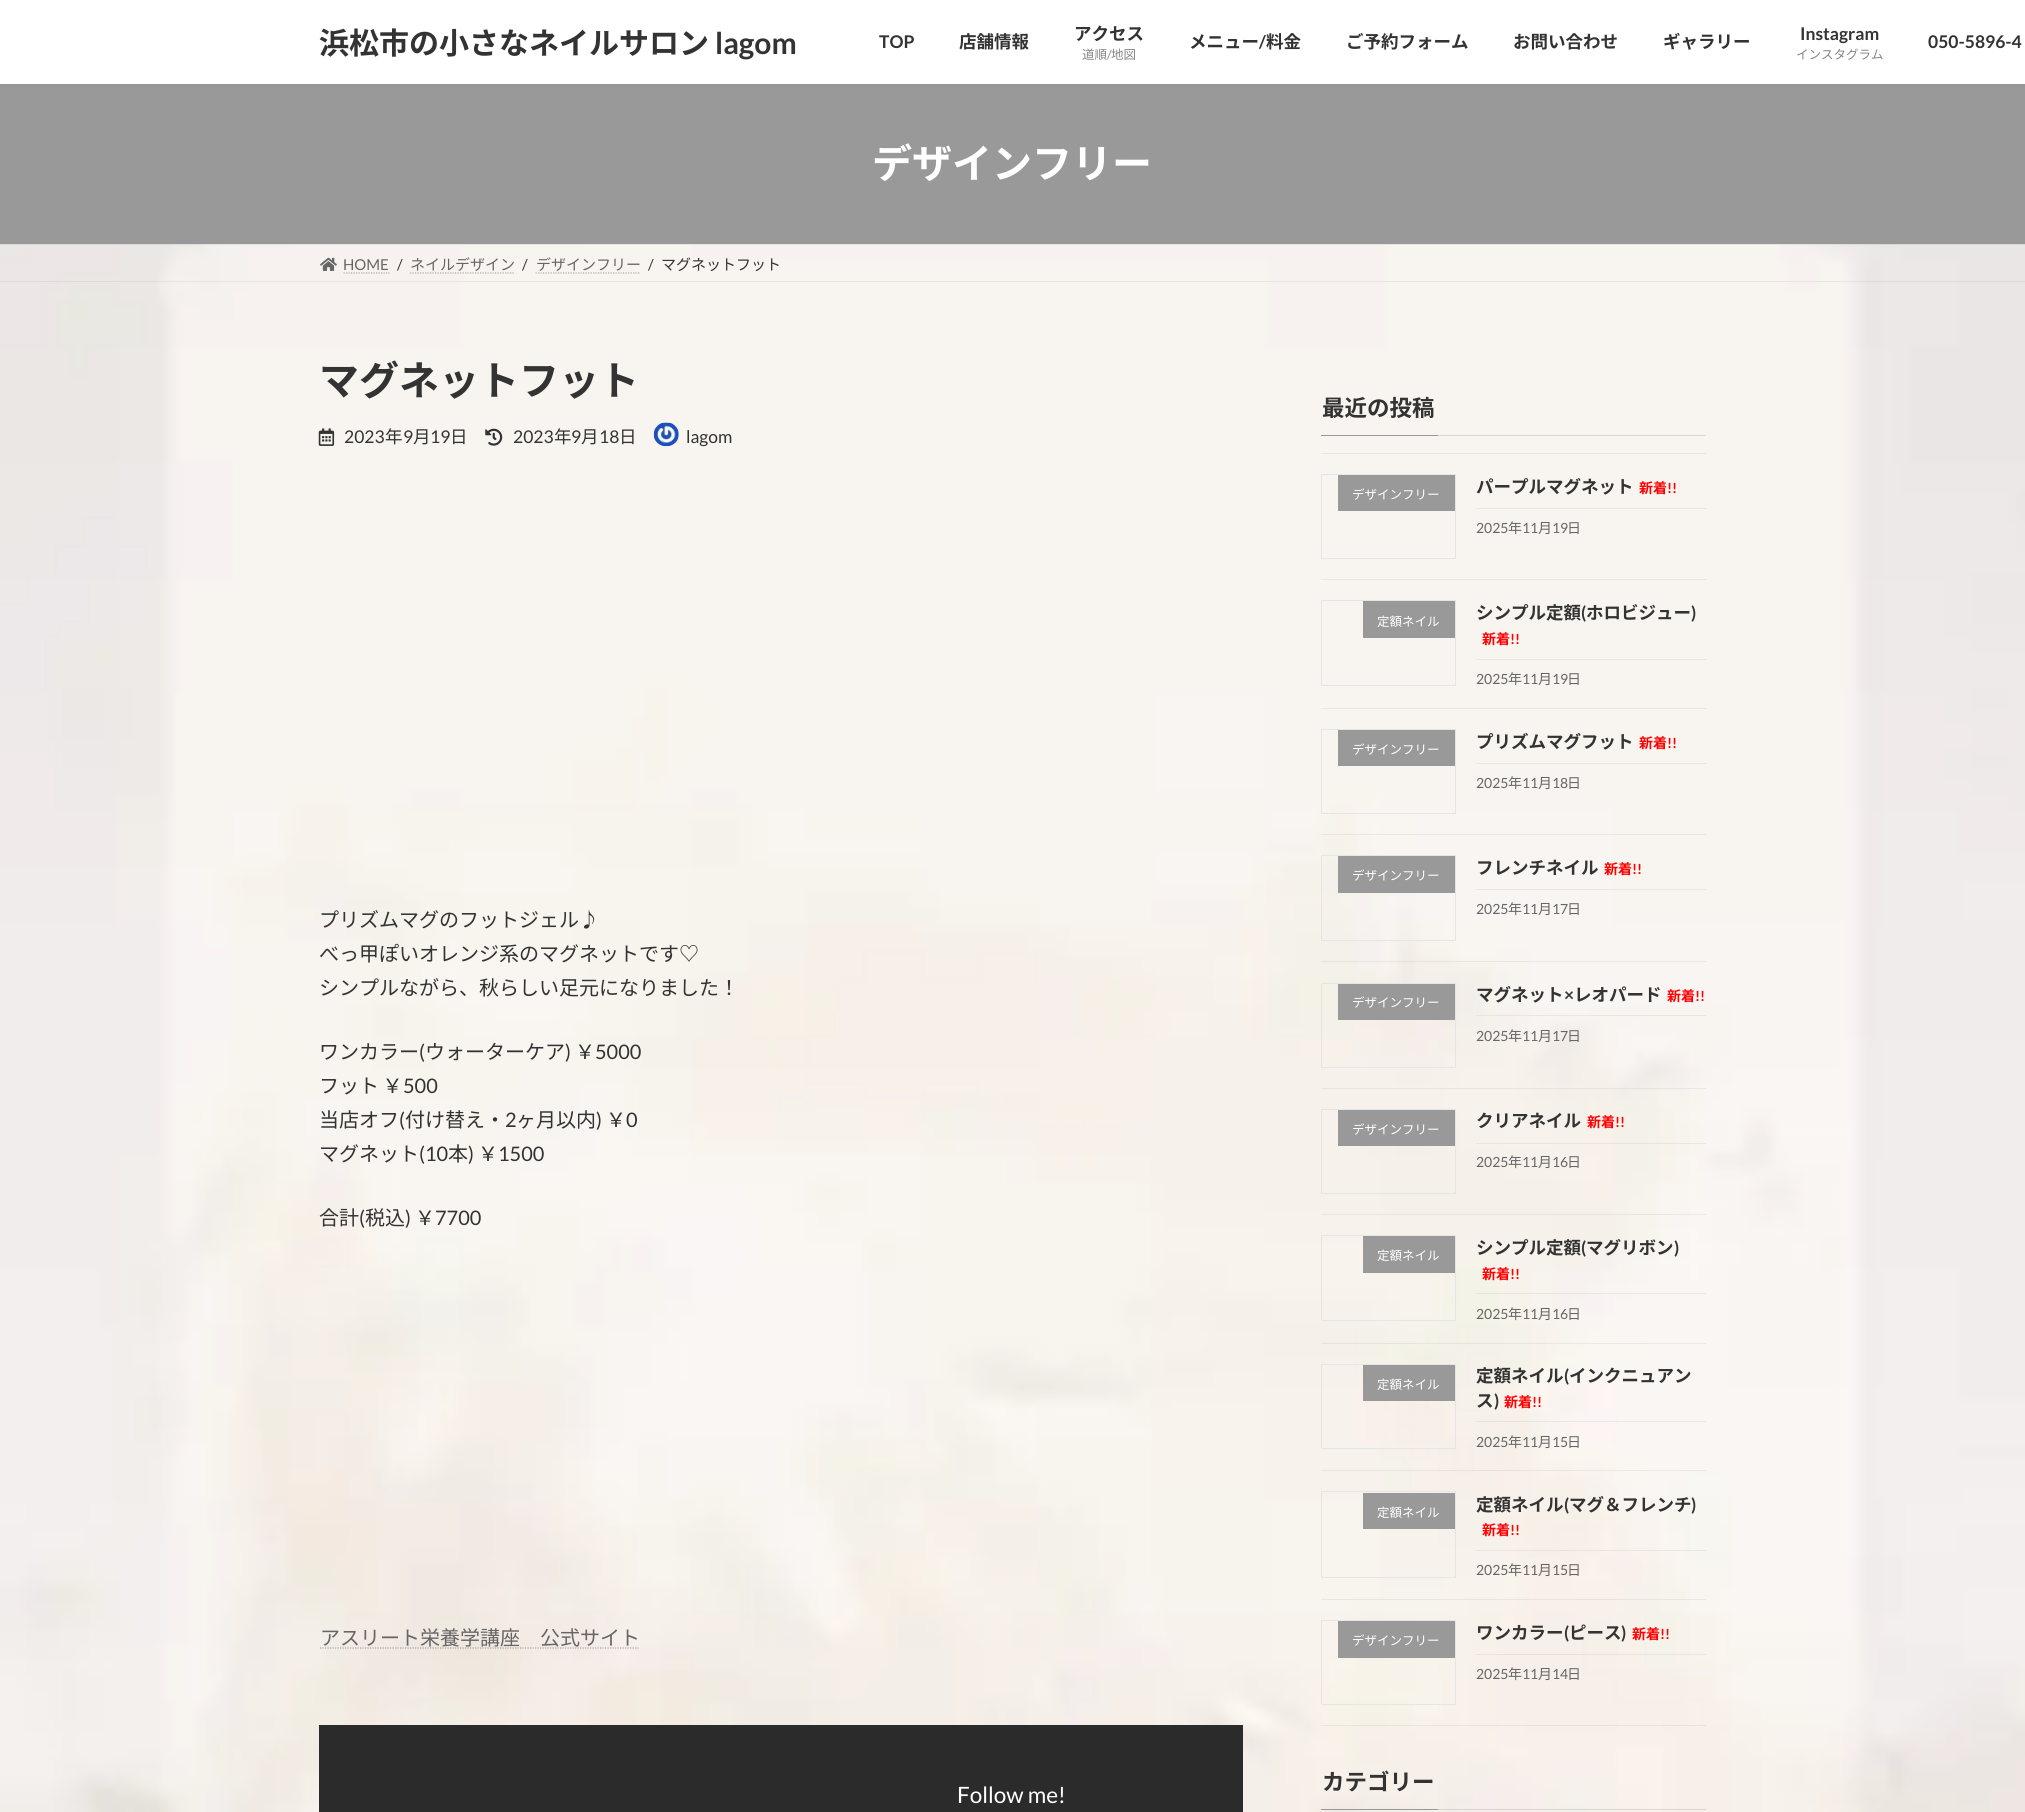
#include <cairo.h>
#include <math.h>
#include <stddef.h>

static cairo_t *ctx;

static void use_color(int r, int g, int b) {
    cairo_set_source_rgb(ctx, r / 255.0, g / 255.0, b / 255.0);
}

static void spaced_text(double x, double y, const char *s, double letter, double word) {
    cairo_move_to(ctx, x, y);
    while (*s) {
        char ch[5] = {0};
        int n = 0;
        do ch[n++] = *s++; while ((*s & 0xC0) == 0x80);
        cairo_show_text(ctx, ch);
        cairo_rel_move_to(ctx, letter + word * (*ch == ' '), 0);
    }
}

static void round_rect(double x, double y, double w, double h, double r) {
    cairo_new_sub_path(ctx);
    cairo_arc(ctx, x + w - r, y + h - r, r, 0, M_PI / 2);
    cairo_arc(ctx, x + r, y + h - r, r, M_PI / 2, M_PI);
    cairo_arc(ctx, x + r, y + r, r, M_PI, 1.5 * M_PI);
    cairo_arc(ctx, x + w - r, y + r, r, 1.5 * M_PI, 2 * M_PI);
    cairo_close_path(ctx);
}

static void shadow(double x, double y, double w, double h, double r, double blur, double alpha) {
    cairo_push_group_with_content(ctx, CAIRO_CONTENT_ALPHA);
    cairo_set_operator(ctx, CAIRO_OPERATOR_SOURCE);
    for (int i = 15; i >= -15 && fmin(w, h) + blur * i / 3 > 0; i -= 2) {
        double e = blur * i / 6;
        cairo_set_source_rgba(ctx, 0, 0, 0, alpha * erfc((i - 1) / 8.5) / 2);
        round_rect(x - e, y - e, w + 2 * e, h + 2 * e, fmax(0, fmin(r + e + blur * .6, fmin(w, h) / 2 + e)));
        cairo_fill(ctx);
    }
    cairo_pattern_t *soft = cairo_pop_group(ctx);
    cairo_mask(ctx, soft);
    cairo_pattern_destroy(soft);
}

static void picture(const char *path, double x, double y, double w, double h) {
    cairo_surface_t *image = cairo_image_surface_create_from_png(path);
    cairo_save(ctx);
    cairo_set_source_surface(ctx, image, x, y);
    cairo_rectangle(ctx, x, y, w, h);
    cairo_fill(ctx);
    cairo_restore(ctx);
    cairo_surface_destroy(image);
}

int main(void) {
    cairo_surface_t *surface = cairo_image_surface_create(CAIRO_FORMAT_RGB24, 2025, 1812);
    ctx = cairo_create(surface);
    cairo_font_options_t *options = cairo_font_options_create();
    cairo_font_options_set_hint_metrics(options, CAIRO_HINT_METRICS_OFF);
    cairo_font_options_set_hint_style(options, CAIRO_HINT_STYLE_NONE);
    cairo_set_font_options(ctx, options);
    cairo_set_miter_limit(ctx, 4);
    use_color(255, 255, 255);
    cairo_paint(ctx);
    picture("img1.png", 0, 244, 2025, 1568);
    use_color(153, 153, 153);
    cairo_rectangle(ctx, 0, 84, 2025, 160);
    cairo_fill(ctx);
    use_color(0, 0, 0);
    shadow(0, 1, 2025, 84, 0, 2, 0.05);
    use_color(255, 255, 255);
    cairo_rectangle(ctx, 0, 0, 2025, 84);
    cairo_fill(ctx);
    cairo_select_font_face(ctx, "Noto Sans JP", CAIRO_FONT_SLANT_NORMAL, CAIRO_FONT_WEIGHT_BOLD);
    cairo_set_font_size(ctx, 30);
    use_color(51, 51, 51);
    cairo_move_to(ctx, 319, 54);
    cairo_show_text(ctx, "浜松市の小さなネイルサロン");
    cairo_select_font_face(ctx, "Lato", CAIRO_FONT_SLANT_NORMAL, CAIRO_FONT_WEIGHT_BOLD);
    cairo_move_to(ctx, 715, 54);
    cairo_show_text(ctx, "lagom");
    cairo_set_font_size(ctx, 17.5);
    cairo_move_to(ctx, 879, 48);
    cairo_show_text(ctx, "TOP");
    cairo_select_font_face(ctx, "Noto Sans JP", CAIRO_FONT_SLANT_NORMAL, CAIRO_FONT_WEIGHT_BOLD);
    cairo_move_to(ctx, 959, 48);
    cairo_show_text(ctx, "店舗情報");
    cairo_move_to(ctx, 1074, 40);
    cairo_show_text(ctx, "アクセス");
    cairo_select_font_face(ctx, "Noto Sans JP", CAIRO_FONT_SLANT_NORMAL, CAIRO_FONT_WEIGHT_NORMAL);
    cairo_set_font_size(ctx, 12.5);
    use_color(133, 133, 133);
    cairo_move_to(ctx, 1082, 59);
    cairo_show_text(ctx, "道順");
    cairo_select_font_face(ctx, "Lato", CAIRO_FONT_SLANT_NORMAL, CAIRO_FONT_WEIGHT_NORMAL);
    cairo_move_to(ctx, 1107, 59);
    cairo_show_text(ctx, "/");
    cairo_select_font_face(ctx, "Noto Sans JP", CAIRO_FONT_SLANT_NORMAL, CAIRO_FONT_WEIGHT_NORMAL);
    cairo_move_to(ctx, 1111, 59);
    cairo_show_text(ctx, "地図");
    cairo_select_font_face(ctx, "Noto Sans JP", CAIRO_FONT_SLANT_NORMAL, CAIRO_FONT_WEIGHT_BOLD);
    cairo_set_font_size(ctx, 17.5);
    use_color(51, 51, 51);
    cairo_move_to(ctx, 1189, 48);
    cairo_show_text(ctx, "メニュー");
    cairo_select_font_face(ctx, "Lato", CAIRO_FONT_SLANT_NORMAL, CAIRO_FONT_WEIGHT_BOLD);
    cairo_move_to(ctx, 1259, 48);
    cairo_show_text(ctx, "/");
    cairo_select_font_face(ctx, "Noto Sans JP", CAIRO_FONT_SLANT_NORMAL, CAIRO_FONT_WEIGHT_BOLD);
    cairo_move_to(ctx, 1266, 48);
    cairo_show_text(ctx, "料金");
    cairo_move_to(ctx, 1346, 48);
    cairo_show_text(ctx, "ご予約フォーム");
    cairo_move_to(ctx, 1513, 48);
    cairo_show_text(ctx, "お問い合わせ");
    cairo_move_to(ctx, 1663, 48);
    cairo_show_text(ctx, "ギャラリー");
    cairo_select_font_face(ctx, "Lato", CAIRO_FONT_SLANT_NORMAL, CAIRO_FONT_WEIGHT_BOLD);
    cairo_move_to(ctx, 1800, 40);
    cairo_show_text(ctx, "Instagram");
    cairo_select_font_face(ctx, "Noto Sans JP", CAIRO_FONT_SLANT_NORMAL, CAIRO_FONT_WEIGHT_NORMAL);
    cairo_set_font_size(ctx, 12.5);
    use_color(133, 133, 133);
    cairo_move_to(ctx, 1796, 59);
    cairo_show_text(ctx, "インスタグラム");
    cairo_select_font_face(ctx, "Lato", CAIRO_FONT_SLANT_NORMAL, CAIRO_FONT_WEIGHT_BOLD);
    cairo_set_font_size(ctx, 17.5);
    use_color(51, 51, 51);
    cairo_move_to(ctx, 1928, 48);
    cairo_show_text(ctx, "050-5896-4");
    cairo_select_font_face(ctx, "Noto Sans JP", CAIRO_FONT_SLANT_NORMAL, CAIRO_FONT_WEIGHT_BOLD);
    cairo_set_font_size(ctx, 40);
    use_color(255, 255, 255);
    cairo_move_to(ctx, 872, 178);
    cairo_show_text(ctx, "デザインフリー");
    cairo_set_source_rgba(ctx, 0, 0, 0, 0.06);
    cairo_rectangle(ctx, 0, 244, 2025, 1);
    cairo_fill(ctx);
    cairo_rectangle(ctx, 0, 281, 2025, 1);
    cairo_fill(ctx);
    picture("img2.png", 320, 257, 17, 14);
    cairo_select_font_face(ctx, "Lato", CAIRO_FONT_SLANT_NORMAL, CAIRO_FONT_WEIGHT_NORMAL);
    cairo_set_font_size(ctx, 15);
    use_color(102, 102, 102);
    cairo_move_to(ctx, 343, 270);
    cairo_show_text(ctx, "HOME");
    cairo_new_path(ctx);
    cairo_move_to(ctx, 343.5, 273);
    cairo_line_to(ctx, 389.5, 273);
    use_color(173, 169, 167);
    cairo_set_line_width(ctx, 1.2);
    cairo_set_dash(ctx, (double[]){1.25, 1.25}, 2, 0);
    cairo_stroke(ctx);
    use_color(51, 51, 51);
    cairo_move_to(ctx, 397, 270);
    cairo_show_text(ctx, "/");
    cairo_select_font_face(ctx, "Noto Sans JP", CAIRO_FONT_SLANT_NORMAL, CAIRO_FONT_WEIGHT_NORMAL);
    use_color(102, 102, 102);
    cairo_move_to(ctx, 410, 270);
    cairo_show_text(ctx, "ネイルデザイン");
    cairo_new_path(ctx);
    cairo_move_to(ctx, 410, 273);
    cairo_line_to(ctx, 515, 273);
    use_color(173, 170, 168);
    cairo_stroke(ctx);
    cairo_select_font_face(ctx, "Lato", CAIRO_FONT_SLANT_NORMAL, CAIRO_FONT_WEIGHT_NORMAL);
    use_color(51, 51, 51);
    cairo_move_to(ctx, 522, 270);
    cairo_show_text(ctx, "/");
    cairo_select_font_face(ctx, "Noto Sans JP", CAIRO_FONT_SLANT_NORMAL, CAIRO_FONT_WEIGHT_NORMAL);
    use_color(102, 102, 102);
    cairo_move_to(ctx, 536, 270);
    cairo_show_text(ctx, "デザインフリー");
    cairo_new_path(ctx);
    cairo_move_to(ctx, 535.5, 273);
    cairo_line_to(ctx, 640.5, 273);
    use_color(174, 171, 168);
    cairo_stroke(ctx);
    cairo_select_font_face(ctx, "Lato", CAIRO_FONT_SLANT_NORMAL, CAIRO_FONT_WEIGHT_NORMAL);
    use_color(51, 51, 51);
    cairo_move_to(ctx, 648, 270);
    cairo_show_text(ctx, "/");
    cairo_select_font_face(ctx, "Noto Sans JP", CAIRO_FONT_SLANT_NORMAL, CAIRO_FONT_WEIGHT_NORMAL);
    cairo_move_to(ctx, 661, 270);
    cairo_show_text(ctx, "マグネットフット");
    cairo_select_font_face(ctx, "Noto Sans JP", CAIRO_FONT_SLANT_NORMAL, CAIRO_FONT_WEIGHT_BOLD);
    cairo_set_font_size(ctx, 40);
    cairo_move_to(ctx, 319, 395);
    cairo_show_text(ctx, "マグネットフット");
    picture("img3.png", 318, 428, 17, 18);
    cairo_select_font_face(ctx, "Lato", CAIRO_FONT_SLANT_NORMAL, CAIRO_FONT_WEIGHT_NORMAL);
    cairo_set_font_size(ctx, 17.5);
    cairo_move_to(ctx, 344, 443);
    cairo_show_text(ctx, "2023");
    cairo_select_font_face(ctx, "Noto Sans JP", CAIRO_FONT_SLANT_NORMAL, CAIRO_FONT_WEIGHT_NORMAL);
    cairo_move_to(ctx, 385, 443);
    cairo_show_text(ctx, "年");
    cairo_select_font_face(ctx, "Lato", CAIRO_FONT_SLANT_NORMAL, CAIRO_FONT_WEIGHT_NORMAL);
    cairo_move_to(ctx, 403, 443);
    cairo_show_text(ctx, "9");
    cairo_select_font_face(ctx, "Noto Sans JP", CAIRO_FONT_SLANT_NORMAL, CAIRO_FONT_WEIGHT_NORMAL);
    cairo_move_to(ctx, 413, 443);
    cairo_show_text(ctx, "月");
    cairo_select_font_face(ctx, "Lato", CAIRO_FONT_SLANT_NORMAL, CAIRO_FONT_WEIGHT_NORMAL);
    cairo_move_to(ctx, 430, 443);
    cairo_show_text(ctx, "19");
    cairo_select_font_face(ctx, "Noto Sans JP", CAIRO_FONT_SLANT_NORMAL, CAIRO_FONT_WEIGHT_NORMAL);
    cairo_move_to(ctx, 450, 443);
    cairo_show_text(ctx, "日");
    picture("img4.png", 485, 428, 18, 18);
    cairo_select_font_face(ctx, "Lato", CAIRO_FONT_SLANT_NORMAL, CAIRO_FONT_WEIGHT_NORMAL);
    cairo_move_to(ctx, 513, 443);
    cairo_show_text(ctx, "2023");
    cairo_select_font_face(ctx, "Noto Sans JP", CAIRO_FONT_SLANT_NORMAL, CAIRO_FONT_WEIGHT_NORMAL);
    cairo_move_to(ctx, 554, 443);
    cairo_show_text(ctx, "年");
    cairo_select_font_face(ctx, "Lato", CAIRO_FONT_SLANT_NORMAL, CAIRO_FONT_WEIGHT_NORMAL);
    cairo_move_to(ctx, 571, 443);
    cairo_show_text(ctx, "9");
    cairo_select_font_face(ctx, "Noto Sans JP", CAIRO_FONT_SLANT_NORMAL, CAIRO_FONT_WEIGHT_NORMAL);
    cairo_move_to(ctx, 581, 443);
    cairo_show_text(ctx, "月");
    cairo_select_font_face(ctx, "Lato", CAIRO_FONT_SLANT_NORMAL, CAIRO_FONT_WEIGHT_NORMAL);
    cairo_move_to(ctx, 599, 443);
    cairo_show_text(ctx, "18");
    cairo_select_font_face(ctx, "Noto Sans JP", CAIRO_FONT_SLANT_NORMAL, CAIRO_FONT_WEIGHT_NORMAL);
    cairo_move_to(ctx, 619, 443);
    cairo_show_text(ctx, "日");
    picture("img5.png", 653, 422, 26, 25);
    cairo_select_font_face(ctx, "Lato", CAIRO_FONT_SLANT_NORMAL, CAIRO_FONT_WEIGHT_NORMAL);
    cairo_move_to(ctx, 686, 443);
    cairo_show_text(ctx, "lagom");
    cairo_select_font_face(ctx, "Noto Sans JP", CAIRO_FONT_SLANT_NORMAL, CAIRO_FONT_WEIGHT_NORMAL);
    cairo_set_font_size(ctx, 20);
    cairo_move_to(ctx, 319, 927);
    cairo_show_text(ctx, "プリズムマグのフットジェル♪");
    cairo_move_to(ctx, 319, 961);
    cairo_show_text(ctx, "べっ甲ぽいオレンジ系のマグネットです♡");
    cairo_move_to(ctx, 319, 995);
    cairo_show_text(ctx, "シンプルながら、秋らしい足元になりました！");
    cairo_move_to(ctx, 319, 1059);
    cairo_show_text(ctx, "ワンカラー");
    cairo_select_font_face(ctx, "Lato", CAIRO_FONT_SLANT_NORMAL, CAIRO_FONT_WEIGHT_NORMAL);
    cairo_move_to(ctx, 419, 1059);
    cairo_show_text(ctx, "(");
    cairo_select_font_face(ctx, "Noto Sans JP", CAIRO_FONT_SLANT_NORMAL, CAIRO_FONT_WEIGHT_NORMAL);
    cairo_move_to(ctx, 425, 1059);
    cairo_show_text(ctx, "ウォーターケア");
    cairo_select_font_face(ctx, "Lato", CAIRO_FONT_SLANT_NORMAL, CAIRO_FONT_WEIGHT_NORMAL);
    cairo_move_to(ctx, 565, 1059);
    cairo_show_text(ctx, ")");
    cairo_select_font_face(ctx, "Noto Sans JP", CAIRO_FONT_SLANT_NORMAL, CAIRO_FONT_WEIGHT_NORMAL);
    cairo_move_to(ctx, 575, 1059);
    cairo_show_text(ctx, "￥");
    cairo_select_font_face(ctx, "Lato", CAIRO_FONT_SLANT_NORMAL, CAIRO_FONT_WEIGHT_NORMAL);
    cairo_move_to(ctx, 595, 1059);
    cairo_show_text(ctx, "5000");
    cairo_select_font_face(ctx, "Noto Sans JP", CAIRO_FONT_SLANT_NORMAL, CAIRO_FONT_WEIGHT_NORMAL);
    spaced_text(319, 1093, "フット ￥", 0, -1);
    cairo_select_font_face(ctx, "Lato", CAIRO_FONT_SLANT_NORMAL, CAIRO_FONT_WEIGHT_NORMAL);
    cairo_move_to(ctx, 403, 1093);
    cairo_show_text(ctx, "500");
    cairo_select_font_face(ctx, "Noto Sans JP", CAIRO_FONT_SLANT_NORMAL, CAIRO_FONT_WEIGHT_NORMAL);
    cairo_move_to(ctx, 319, 1127);
    cairo_show_text(ctx, "当店オフ");
    cairo_select_font_face(ctx, "Lato", CAIRO_FONT_SLANT_NORMAL, CAIRO_FONT_WEIGHT_NORMAL);
    cairo_move_to(ctx, 399, 1127);
    cairo_show_text(ctx, "(");
    cairo_select_font_face(ctx, "Noto Sans JP", CAIRO_FONT_SLANT_NORMAL, CAIRO_FONT_WEIGHT_NORMAL);
    cairo_move_to(ctx, 405, 1127);
    cairo_show_text(ctx, "付け替え・");
    cairo_select_font_face(ctx, "Lato", CAIRO_FONT_SLANT_NORMAL, CAIRO_FONT_WEIGHT_NORMAL);
    cairo_move_to(ctx, 505, 1127);
    cairo_show_text(ctx, "2");
    cairo_select_font_face(ctx, "Noto Sans JP", CAIRO_FONT_SLANT_NORMAL, CAIRO_FONT_WEIGHT_NORMAL);
    cairo_move_to(ctx, 516, 1127);
    cairo_show_text(ctx, "ヶ月以内");
    cairo_select_font_face(ctx, "Lato", CAIRO_FONT_SLANT_NORMAL, CAIRO_FONT_WEIGHT_NORMAL);
    cairo_move_to(ctx, 596, 1127);
    cairo_show_text(ctx, ")");
    cairo_select_font_face(ctx, "Noto Sans JP", CAIRO_FONT_SLANT_NORMAL, CAIRO_FONT_WEIGHT_NORMAL);
    cairo_move_to(ctx, 606, 1127);
    cairo_show_text(ctx, "￥");
    cairo_select_font_face(ctx, "Lato", CAIRO_FONT_SLANT_NORMAL, CAIRO_FONT_WEIGHT_NORMAL);
    cairo_move_to(ctx, 626, 1127);
    cairo_show_text(ctx, "0");
    cairo_select_font_face(ctx, "Noto Sans JP", CAIRO_FONT_SLANT_NORMAL, CAIRO_FONT_WEIGHT_NORMAL);
    cairo_move_to(ctx, 319, 1161);
    cairo_show_text(ctx, "マグネット");
    cairo_select_font_face(ctx, "Lato", CAIRO_FONT_SLANT_NORMAL, CAIRO_FONT_WEIGHT_NORMAL);
    cairo_move_to(ctx, 419, 1161);
    cairo_show_text(ctx, "(10");
    cairo_select_font_face(ctx, "Noto Sans JP", CAIRO_FONT_SLANT_NORMAL, CAIRO_FONT_WEIGHT_NORMAL);
    cairo_move_to(ctx, 448, 1161);
    cairo_show_text(ctx, "本");
    cairo_select_font_face(ctx, "Lato", CAIRO_FONT_SLANT_NORMAL, CAIRO_FONT_WEIGHT_NORMAL);
    cairo_move_to(ctx, 468, 1161);
    cairo_show_text(ctx, ")");
    cairo_select_font_face(ctx, "Noto Sans JP", CAIRO_FONT_SLANT_NORMAL, CAIRO_FONT_WEIGHT_NORMAL);
    cairo_move_to(ctx, 478, 1161);
    cairo_show_text(ctx, "￥");
    cairo_select_font_face(ctx, "Lato", CAIRO_FONT_SLANT_NORMAL, CAIRO_FONT_WEIGHT_NORMAL);
    cairo_move_to(ctx, 498, 1161);
    cairo_show_text(ctx, "1500");
    cairo_select_font_face(ctx, "Noto Sans JP", CAIRO_FONT_SLANT_NORMAL, CAIRO_FONT_WEIGHT_NORMAL);
    cairo_move_to(ctx, 319, 1225);
    cairo_show_text(ctx, "合計");
    cairo_select_font_face(ctx, "Lato", CAIRO_FONT_SLANT_NORMAL, CAIRO_FONT_WEIGHT_NORMAL);
    cairo_move_to(ctx, 359, 1225);
    cairo_show_text(ctx, "(");
    cairo_select_font_face(ctx, "Noto Sans JP", CAIRO_FONT_SLANT_NORMAL, CAIRO_FONT_WEIGHT_NORMAL);
    cairo_move_to(ctx, 365, 1225);
    cairo_show_text(ctx, "税込");
    cairo_select_font_face(ctx, "Lato", CAIRO_FONT_SLANT_NORMAL, CAIRO_FONT_WEIGHT_NORMAL);
    cairo_move_to(ctx, 405, 1225);
    cairo_show_text(ctx, ")");
    cairo_select_font_face(ctx, "Noto Sans JP", CAIRO_FONT_SLANT_NORMAL, CAIRO_FONT_WEIGHT_NORMAL);
    cairo_move_to(ctx, 415, 1225);
    cairo_show_text(ctx, "￥");
    cairo_select_font_face(ctx, "Lato", CAIRO_FONT_SLANT_NORMAL, CAIRO_FONT_WEIGHT_NORMAL);
    cairo_move_to(ctx, 435, 1225);
    cairo_show_text(ctx, "7700");
    cairo_select_font_face(ctx, "Noto Sans JP", CAIRO_FONT_SLANT_NORMAL, CAIRO_FONT_WEIGHT_NORMAL);
    use_color(102, 102, 102);
    cairo_move_to(ctx, 320, 1645);
    cairo_show_text(ctx, "アスリート栄養学講座　公式サイト");
    cairo_new_path(ctx);
    cairo_move_to(ctx, 320, 1648);
    cairo_line_to(ctx, 640, 1648);
    cairo_set_source_rgba(ctx, 0, 0, 0, 0.3);
    cairo_stroke(ctx);
    use_color(43, 43, 43);
    cairo_rectangle(ctx, 319, 1725, 924, 87);
    cairo_fill(ctx);
    cairo_select_font_face(ctx, "Lato", CAIRO_FONT_SLANT_NORMAL, CAIRO_FONT_WEIGHT_NORMAL);
    cairo_set_font_size(ctx, 22.5);
    use_color(255, 255, 255);
    cairo_move_to(ctx, 957, 1803);
    cairo_show_text(ctx, "Follow me!");
    use_color(218, 215, 211);
    cairo_rectangle(ctx, 1438, 435, 268, 1);
    cairo_fill(ctx);
    cairo_select_font_face(ctx, "Noto Sans JP", CAIRO_FONT_SLANT_NORMAL, CAIRO_FONT_WEIGHT_BOLD);
    use_color(51, 51, 51);
    cairo_move_to(ctx, 1322, 416);
    cairo_show_text(ctx, "最近の投稿");
    use_color(153, 153, 153);
    cairo_rectangle(ctx, 1321, 435, 117, 1);
    cairo_fill(ctx);
    use_color(233, 229, 226);
    cairo_rectangle(ctx, 1321, 453, 385, 1);
    cairo_fill(ctx);
    cairo_rectangle(ctx, 1321, 579, 385, 1);
    cairo_fill(ctx);
    cairo_rectangle(ctx, 1321.5, 474.5, 134, 84);
    use_color(229, 229, 229);
    cairo_set_line_width(ctx, 1);
    cairo_set_dash(ctx, NULL, 0, 0);
    cairo_stroke(ctx);
    use_color(153, 153, 153);
    cairo_rectangle(ctx, 1338, 475, 117, 36);
    cairo_fill(ctx);
    cairo_select_font_face(ctx, "Noto Sans JP", CAIRO_FONT_SLANT_NORMAL, CAIRO_FONT_WEIGHT_NORMAL);
    cairo_set_font_size(ctx, 12.5);
    use_color(255, 255, 255);
    cairo_move_to(ctx, 1352, 499);
    cairo_show_text(ctx, "デザインフリー");
    use_color(233, 229, 226);
    cairo_rectangle(ctx, 1476, 508, 230, 1);
    cairo_fill(ctx);
    cairo_select_font_face(ctx, "Noto Sans JP", CAIRO_FONT_SLANT_NORMAL, CAIRO_FONT_WEIGHT_BOLD);
    cairo_set_font_size(ctx, 17.5);
    use_color(51, 51, 51);
    cairo_move_to(ctx, 1476, 493);
    cairo_show_text(ctx, "パープルマグネット");
    cairo_set_font_size(ctx, 14);
    use_color(255, 0, 0);
    cairo_move_to(ctx, 1639, 493);
    cairo_show_text(ctx, "新着");
    cairo_select_font_face(ctx, "Lato", CAIRO_FONT_SLANT_NORMAL, CAIRO_FONT_WEIGHT_BOLD);
    cairo_move_to(ctx, 1667, 493);
    cairo_show_text(ctx, "!!");
    cairo_select_font_face(ctx, "Lato", CAIRO_FONT_SLANT_NORMAL, CAIRO_FONT_WEIGHT_NORMAL);
    use_color(102, 102, 102);
    cairo_move_to(ctx, 1476, 533);
    cairo_show_text(ctx, "2025");
    cairo_select_font_face(ctx, "Noto Sans JP", CAIRO_FONT_SLANT_NORMAL, CAIRO_FONT_WEIGHT_NORMAL);
    cairo_move_to(ctx, 1508, 533);
    cairo_show_text(ctx, "年");
    cairo_select_font_face(ctx, "Lato", CAIRO_FONT_SLANT_NORMAL, CAIRO_FONT_WEIGHT_NORMAL);
    cairo_move_to(ctx, 1522, 533);
    cairo_show_text(ctx, "11");
    cairo_select_font_face(ctx, "Noto Sans JP", CAIRO_FONT_SLANT_NORMAL, CAIRO_FONT_WEIGHT_NORMAL);
    cairo_move_to(ctx, 1538, 533);
    cairo_show_text(ctx, "月");
    cairo_select_font_face(ctx, "Lato", CAIRO_FONT_SLANT_NORMAL, CAIRO_FONT_WEIGHT_NORMAL);
    cairo_move_to(ctx, 1552, 533);
    cairo_show_text(ctx, "19");
    cairo_select_font_face(ctx, "Noto Sans JP", CAIRO_FONT_SLANT_NORMAL, CAIRO_FONT_WEIGHT_NORMAL);
    cairo_move_to(ctx, 1567, 533);
    cairo_show_text(ctx, "日");
    use_color(233, 229, 226);
    cairo_rectangle(ctx, 1321, 708, 385, 1);
    cairo_fill(ctx);
    cairo_rectangle(ctx, 1321.5, 600.5, 134, 85);
    use_color(229, 229, 229);
    cairo_stroke(ctx);
    use_color(153, 153, 153);
    cairo_rectangle(ctx, 1363, 601, 92, 37);
    cairo_fill(ctx);
    cairo_set_font_size(ctx, 12.5);
    use_color(255, 255, 255);
    cairo_move_to(ctx, 1377, 626);
    cairo_show_text(ctx, "定額ネイル");
    use_color(233, 229, 226);
    cairo_rectangle(ctx, 1476, 659, 230, 1);
    cairo_fill(ctx);
    cairo_select_font_face(ctx, "Noto Sans JP", CAIRO_FONT_SLANT_NORMAL, CAIRO_FONT_WEIGHT_BOLD);
    cairo_set_font_size(ctx, 17.5);
    use_color(51, 51, 51);
    cairo_move_to(ctx, 1476, 619);
    cairo_show_text(ctx, "シンプル定額");
    cairo_select_font_face(ctx, "Lato", CAIRO_FONT_SLANT_NORMAL, CAIRO_FONT_WEIGHT_BOLD);
    cairo_move_to(ctx, 1581, 619);
    cairo_show_text(ctx, "(");
    cairo_select_font_face(ctx, "Noto Sans JP", CAIRO_FONT_SLANT_NORMAL, CAIRO_FONT_WEIGHT_BOLD);
    cairo_move_to(ctx, 1586, 619);
    cairo_show_text(ctx, "ホロビジュー");
    cairo_select_font_face(ctx, "Lato", CAIRO_FONT_SLANT_NORMAL, CAIRO_FONT_WEIGHT_BOLD);
    cairo_move_to(ctx, 1691, 619);
    cairo_show_text(ctx, ")");
    cairo_select_font_face(ctx, "Noto Sans JP", CAIRO_FONT_SLANT_NORMAL, CAIRO_FONT_WEIGHT_BOLD);
    cairo_set_font_size(ctx, 14);
    use_color(255, 0, 0);
    cairo_move_to(ctx, 1482, 644);
    cairo_show_text(ctx, "新着");
    cairo_select_font_face(ctx, "Lato", CAIRO_FONT_SLANT_NORMAL, CAIRO_FONT_WEIGHT_BOLD);
    cairo_move_to(ctx, 1510, 644);
    cairo_show_text(ctx, "!!");
    cairo_select_font_face(ctx, "Lato", CAIRO_FONT_SLANT_NORMAL, CAIRO_FONT_WEIGHT_NORMAL);
    use_color(102, 102, 102);
    cairo_move_to(ctx, 1476, 684);
    cairo_show_text(ctx, "2025");
    cairo_select_font_face(ctx, "Noto Sans JP", CAIRO_FONT_SLANT_NORMAL, CAIRO_FONT_WEIGHT_NORMAL);
    cairo_move_to(ctx, 1508, 684);
    cairo_show_text(ctx, "年");
    cairo_select_font_face(ctx, "Lato", CAIRO_FONT_SLANT_NORMAL, CAIRO_FONT_WEIGHT_NORMAL);
    cairo_move_to(ctx, 1522, 684);
    cairo_show_text(ctx, "11");
    cairo_select_font_face(ctx, "Noto Sans JP", CAIRO_FONT_SLANT_NORMAL, CAIRO_FONT_WEIGHT_NORMAL);
    cairo_move_to(ctx, 1538, 684);
    cairo_show_text(ctx, "月");
    cairo_select_font_face(ctx, "Lato", CAIRO_FONT_SLANT_NORMAL, CAIRO_FONT_WEIGHT_NORMAL);
    cairo_move_to(ctx, 1552, 684);
    cairo_show_text(ctx, "19");
    cairo_select_font_face(ctx, "Noto Sans JP", CAIRO_FONT_SLANT_NORMAL, CAIRO_FONT_WEIGHT_NORMAL);
    cairo_move_to(ctx, 1567, 684);
    cairo_show_text(ctx, "日");
    cairo_set_source_rgba(ctx, 0, 0, 0, 0.06);
    cairo_rectangle(ctx, 1321, 834, 385, 1);
    cairo_fill(ctx);
    cairo_rectangle(ctx, 1321.5, 729.5, 134, 84);
    use_color(229, 229, 229);
    cairo_stroke(ctx);
    use_color(153, 153, 153);
    cairo_rectangle(ctx, 1338, 730, 117, 36);
    cairo_fill(ctx);
    cairo_set_font_size(ctx, 12.5);
    use_color(255, 255, 255);
    cairo_move_to(ctx, 1352, 754);
    cairo_show_text(ctx, "デザインフリー");
    use_color(233, 229, 226);
    cairo_rectangle(ctx, 1476, 763, 230, 1);
    cairo_fill(ctx);
    cairo_select_font_face(ctx, "Noto Sans JP", CAIRO_FONT_SLANT_NORMAL, CAIRO_FONT_WEIGHT_BOLD);
    cairo_set_font_size(ctx, 17.5);
    use_color(51, 51, 51);
    cairo_move_to(ctx, 1476, 748);
    cairo_show_text(ctx, "プリズムマグフット");
    cairo_set_font_size(ctx, 14);
    use_color(255, 0, 0);
    cairo_move_to(ctx, 1639, 748);
    cairo_show_text(ctx, "新着");
    cairo_select_font_face(ctx, "Lato", CAIRO_FONT_SLANT_NORMAL, CAIRO_FONT_WEIGHT_BOLD);
    cairo_move_to(ctx, 1667, 748);
    cairo_show_text(ctx, "!!");
    cairo_select_font_face(ctx, "Lato", CAIRO_FONT_SLANT_NORMAL, CAIRO_FONT_WEIGHT_NORMAL);
    use_color(102, 102, 102);
    cairo_move_to(ctx, 1476, 788);
    cairo_show_text(ctx, "2025");
    cairo_select_font_face(ctx, "Noto Sans JP", CAIRO_FONT_SLANT_NORMAL, CAIRO_FONT_WEIGHT_NORMAL);
    cairo_move_to(ctx, 1508, 788);
    cairo_show_text(ctx, "年");
    cairo_select_font_face(ctx, "Lato", CAIRO_FONT_SLANT_NORMAL, CAIRO_FONT_WEIGHT_NORMAL);
    cairo_move_to(ctx, 1522, 788);
    cairo_show_text(ctx, "11");
    cairo_select_font_face(ctx, "Noto Sans JP", CAIRO_FONT_SLANT_NORMAL, CAIRO_FONT_WEIGHT_NORMAL);
    cairo_move_to(ctx, 1538, 788);
    cairo_show_text(ctx, "月");
    cairo_select_font_face(ctx, "Lato", CAIRO_FONT_SLANT_NORMAL, CAIRO_FONT_WEIGHT_NORMAL);
    cairo_move_to(ctx, 1552, 788);
    cairo_show_text(ctx, "18");
    cairo_select_font_face(ctx, "Noto Sans JP", CAIRO_FONT_SLANT_NORMAL, CAIRO_FONT_WEIGHT_NORMAL);
    cairo_move_to(ctx, 1567, 788);
    cairo_show_text(ctx, "日");
    cairo_set_source_rgba(ctx, 0, 0, 0, 0.06);
    cairo_rectangle(ctx, 1321, 961, 385, 1);
    cairo_fill(ctx);
    cairo_rectangle(ctx, 1321.5, 855.5, 134, 85);
    use_color(229, 229, 229);
    cairo_stroke(ctx);
    use_color(153, 153, 153);
    cairo_rectangle(ctx, 1338, 856, 117, 37);
    cairo_fill(ctx);
    cairo_set_font_size(ctx, 12.5);
    use_color(255, 255, 255);
    cairo_move_to(ctx, 1352, 880);
    cairo_show_text(ctx, "デザインフリー");
    use_color(234, 230, 227);
    cairo_rectangle(ctx, 1476, 889, 230, 1);
    cairo_fill(ctx);
    cairo_select_font_face(ctx, "Noto Sans JP", CAIRO_FONT_SLANT_NORMAL, CAIRO_FONT_WEIGHT_BOLD);
    cairo_set_font_size(ctx, 17.5);
    use_color(51, 51, 51);
    cairo_move_to(ctx, 1476, 874);
    cairo_show_text(ctx, "フレンチネイル");
    cairo_set_font_size(ctx, 14);
    use_color(255, 0, 0);
    cairo_move_to(ctx, 1604, 874);
    cairo_show_text(ctx, "新着");
    cairo_select_font_face(ctx, "Lato", CAIRO_FONT_SLANT_NORMAL, CAIRO_FONT_WEIGHT_BOLD);
    cairo_move_to(ctx, 1632, 874);
    cairo_show_text(ctx, "!!");
    cairo_select_font_face(ctx, "Lato", CAIRO_FONT_SLANT_NORMAL, CAIRO_FONT_WEIGHT_NORMAL);
    use_color(102, 102, 102);
    cairo_move_to(ctx, 1476, 914);
    cairo_show_text(ctx, "2025");
    cairo_select_font_face(ctx, "Noto Sans JP", CAIRO_FONT_SLANT_NORMAL, CAIRO_FONT_WEIGHT_NORMAL);
    cairo_move_to(ctx, 1508, 914);
    cairo_show_text(ctx, "年");
    cairo_select_font_face(ctx, "Lato", CAIRO_FONT_SLANT_NORMAL, CAIRO_FONT_WEIGHT_NORMAL);
    cairo_move_to(ctx, 1522, 914);
    cairo_show_text(ctx, "11");
    cairo_select_font_face(ctx, "Noto Sans JP", CAIRO_FONT_SLANT_NORMAL, CAIRO_FONT_WEIGHT_NORMAL);
    cairo_move_to(ctx, 1538, 914);
    cairo_show_text(ctx, "月");
    cairo_select_font_face(ctx, "Lato", CAIRO_FONT_SLANT_NORMAL, CAIRO_FONT_WEIGHT_NORMAL);
    cairo_move_to(ctx, 1552, 914);
    cairo_show_text(ctx, "17");
    cairo_select_font_face(ctx, "Noto Sans JP", CAIRO_FONT_SLANT_NORMAL, CAIRO_FONT_WEIGHT_NORMAL);
    cairo_move_to(ctx, 1567, 914);
    cairo_show_text(ctx, "日");
    cairo_set_source_rgba(ctx, 0, 0, 0, 0.06);
    cairo_rectangle(ctx, 1321, 1088, 385, 1);
    cairo_fill(ctx);
    cairo_rectangle(ctx, 1321.5, 983.5, 134, 84);
    use_color(229, 229, 229);
    cairo_stroke(ctx);
    use_color(153, 153, 153);
    cairo_rectangle(ctx, 1338, 984, 117, 36);
    cairo_fill(ctx);
    cairo_set_font_size(ctx, 12.5);
    use_color(255, 255, 255);
    cairo_move_to(ctx, 1352, 1007);
    cairo_show_text(ctx, "デザインフリー");
    cairo_set_source_rgba(ctx, 0, 0, 0, 0.06);
    cairo_rectangle(ctx, 1476, 1015, 230, 1);
    cairo_fill(ctx);
    cairo_select_font_face(ctx, "Noto Sans JP", CAIRO_FONT_SLANT_NORMAL, CAIRO_FONT_WEIGHT_BOLD);
    cairo_set_font_size(ctx, 17.5);
    use_color(51, 51, 51);
    cairo_move_to(ctx, 1476, 1001);
    cairo_show_text(ctx, "マグネット");
    cairo_select_font_face(ctx, "Lato", CAIRO_FONT_SLANT_NORMAL, CAIRO_FONT_WEIGHT_BOLD);
    cairo_move_to(ctx, 1564, 1001);
    cairo_show_text(ctx, "×");
    cairo_select_font_face(ctx, "Noto Sans JP", CAIRO_FONT_SLANT_NORMAL, CAIRO_FONT_WEIGHT_BOLD);
    cairo_move_to(ctx, 1574, 1001);
    cairo_show_text(ctx, "レオパード");
    cairo_set_font_size(ctx, 14);
    use_color(255, 0, 0);
    cairo_move_to(ctx, 1667, 1001);
    cairo_show_text(ctx, "新着");
    cairo_select_font_face(ctx, "Lato", CAIRO_FONT_SLANT_NORMAL, CAIRO_FONT_WEIGHT_BOLD);
    cairo_move_to(ctx, 1695, 1001);
    cairo_show_text(ctx, "!!");
    cairo_select_font_face(ctx, "Lato", CAIRO_FONT_SLANT_NORMAL, CAIRO_FONT_WEIGHT_NORMAL);
    use_color(102, 102, 102);
    cairo_move_to(ctx, 1476, 1041);
    cairo_show_text(ctx, "2025");
    cairo_select_font_face(ctx, "Noto Sans JP", CAIRO_FONT_SLANT_NORMAL, CAIRO_FONT_WEIGHT_NORMAL);
    cairo_move_to(ctx, 1508, 1041);
    cairo_show_text(ctx, "年");
    cairo_select_font_face(ctx, "Lato", CAIRO_FONT_SLANT_NORMAL, CAIRO_FONT_WEIGHT_NORMAL);
    cairo_move_to(ctx, 1522, 1041);
    cairo_show_text(ctx, "11");
    cairo_select_font_face(ctx, "Noto Sans JP", CAIRO_FONT_SLANT_NORMAL, CAIRO_FONT_WEIGHT_NORMAL);
    cairo_move_to(ctx, 1538, 1041);
    cairo_show_text(ctx, "月");
    cairo_select_font_face(ctx, "Lato", CAIRO_FONT_SLANT_NORMAL, CAIRO_FONT_WEIGHT_NORMAL);
    cairo_move_to(ctx, 1552, 1041);
    cairo_show_text(ctx, "17");
    cairo_select_font_face(ctx, "Noto Sans JP", CAIRO_FONT_SLANT_NORMAL, CAIRO_FONT_WEIGHT_NORMAL);
    cairo_move_to(ctx, 1567, 1041);
    cairo_show_text(ctx, "日");
    cairo_set_source_rgba(ctx, 0, 0, 0, 0.06);
    cairo_rectangle(ctx, 1321, 1214, 385, 1);
    cairo_fill(ctx);
    cairo_rectangle(ctx, 1321.5, 1109.5, 134, 84);
    use_color(229, 229, 229);
    cairo_stroke(ctx);
    use_color(153, 153, 153);
    cairo_rectangle(ctx, 1338, 1110, 117, 36);
    cairo_fill(ctx);
    cairo_set_font_size(ctx, 12.5);
    use_color(255, 255, 255);
    cairo_move_to(ctx, 1352, 1134);
    cairo_show_text(ctx, "デザインフリー");
    cairo_set_source_rgba(ctx, 0, 0, 0, 0.06);
    cairo_rectangle(ctx, 1476, 1143, 230, 1);
    cairo_fill(ctx);
    cairo_select_font_face(ctx, "Noto Sans JP", CAIRO_FONT_SLANT_NORMAL, CAIRO_FONT_WEIGHT_BOLD);
    cairo_set_font_size(ctx, 17.5);
    use_color(51, 51, 51);
    cairo_move_to(ctx, 1476, 1127);
    cairo_show_text(ctx, "クリアネイル");
    cairo_set_font_size(ctx, 14);
    use_color(255, 0, 0);
    cairo_move_to(ctx, 1587, 1127);
    cairo_show_text(ctx, "新着");
    cairo_select_font_face(ctx, "Lato", CAIRO_FONT_SLANT_NORMAL, CAIRO_FONT_WEIGHT_BOLD);
    cairo_move_to(ctx, 1615, 1127);
    cairo_show_text(ctx, "!!");
    cairo_select_font_face(ctx, "Lato", CAIRO_FONT_SLANT_NORMAL, CAIRO_FONT_WEIGHT_NORMAL);
    use_color(102, 102, 102);
    cairo_move_to(ctx, 1476, 1167);
    cairo_show_text(ctx, "2025");
    cairo_select_font_face(ctx, "Noto Sans JP", CAIRO_FONT_SLANT_NORMAL, CAIRO_FONT_WEIGHT_NORMAL);
    cairo_move_to(ctx, 1508, 1167);
    cairo_show_text(ctx, "年");
    cairo_select_font_face(ctx, "Lato", CAIRO_FONT_SLANT_NORMAL, CAIRO_FONT_WEIGHT_NORMAL);
    cairo_move_to(ctx, 1522, 1167);
    cairo_show_text(ctx, "11");
    cairo_select_font_face(ctx, "Noto Sans JP", CAIRO_FONT_SLANT_NORMAL, CAIRO_FONT_WEIGHT_NORMAL);
    cairo_move_to(ctx, 1538, 1167);
    cairo_show_text(ctx, "月");
    cairo_select_font_face(ctx, "Lato", CAIRO_FONT_SLANT_NORMAL, CAIRO_FONT_WEIGHT_NORMAL);
    cairo_move_to(ctx, 1552, 1167);
    cairo_show_text(ctx, "16");
    cairo_select_font_face(ctx, "Noto Sans JP", CAIRO_FONT_SLANT_NORMAL, CAIRO_FONT_WEIGHT_NORMAL);
    cairo_move_to(ctx, 1567, 1167);
    cairo_show_text(ctx, "日");
    cairo_set_source_rgba(ctx, 0, 0, 0, 0.06);
    cairo_rectangle(ctx, 1321, 1343, 385, 1);
    cairo_fill(ctx);
    cairo_rectangle(ctx, 1321.5, 1235.5, 134, 85);
    use_color(229, 229, 229);
    cairo_stroke(ctx);
    use_color(153, 153, 153);
    cairo_rectangle(ctx, 1363, 1236, 92, 37);
    cairo_fill(ctx);
    cairo_set_font_size(ctx, 12.5);
    use_color(255, 255, 255);
    cairo_move_to(ctx, 1377, 1260);
    cairo_show_text(ctx, "定額ネイル");
    cairo_set_source_rgba(ctx, 0, 0, 0, 0.06);
    cairo_rectangle(ctx, 1476, 1293, 230, 1);
    cairo_fill(ctx);
    cairo_select_font_face(ctx, "Noto Sans JP", CAIRO_FONT_SLANT_NORMAL, CAIRO_FONT_WEIGHT_BOLD);
    cairo_set_font_size(ctx, 17.5);
    use_color(51, 51, 51);
    cairo_move_to(ctx, 1476, 1254);
    cairo_show_text(ctx, "シンプル定額");
    cairo_select_font_face(ctx, "Lato", CAIRO_FONT_SLANT_NORMAL, CAIRO_FONT_WEIGHT_BOLD);
    cairo_move_to(ctx, 1581, 1254);
    cairo_show_text(ctx, "(");
    cairo_select_font_face(ctx, "Noto Sans JP", CAIRO_FONT_SLANT_NORMAL, CAIRO_FONT_WEIGHT_BOLD);
    cairo_move_to(ctx, 1586, 1254);
    cairo_show_text(ctx, "マグリボン");
    cairo_select_font_face(ctx, "Lato", CAIRO_FONT_SLANT_NORMAL, CAIRO_FONT_WEIGHT_BOLD);
    cairo_move_to(ctx, 1674, 1254);
    cairo_show_text(ctx, ")");
    cairo_select_font_face(ctx, "Noto Sans JP", CAIRO_FONT_SLANT_NORMAL, CAIRO_FONT_WEIGHT_BOLD);
    cairo_set_font_size(ctx, 14);
    use_color(255, 0, 0);
    cairo_move_to(ctx, 1482, 1279);
    cairo_show_text(ctx, "新着");
    cairo_select_font_face(ctx, "Lato", CAIRO_FONT_SLANT_NORMAL, CAIRO_FONT_WEIGHT_BOLD);
    cairo_move_to(ctx, 1510, 1279);
    cairo_show_text(ctx, "!!");
    cairo_select_font_face(ctx, "Lato", CAIRO_FONT_SLANT_NORMAL, CAIRO_FONT_WEIGHT_NORMAL);
    use_color(102, 102, 102);
    cairo_move_to(ctx, 1476, 1319);
    cairo_show_text(ctx, "2025");
    cairo_select_font_face(ctx, "Noto Sans JP", CAIRO_FONT_SLANT_NORMAL, CAIRO_FONT_WEIGHT_NORMAL);
    cairo_move_to(ctx, 1508, 1319);
    cairo_show_text(ctx, "年");
    cairo_select_font_face(ctx, "Lato", CAIRO_FONT_SLANT_NORMAL, CAIRO_FONT_WEIGHT_NORMAL);
    cairo_move_to(ctx, 1522, 1319);
    cairo_show_text(ctx, "11");
    cairo_select_font_face(ctx, "Noto Sans JP", CAIRO_FONT_SLANT_NORMAL, CAIRO_FONT_WEIGHT_NORMAL);
    cairo_move_to(ctx, 1538, 1319);
    cairo_show_text(ctx, "月");
    cairo_select_font_face(ctx, "Lato", CAIRO_FONT_SLANT_NORMAL, CAIRO_FONT_WEIGHT_NORMAL);
    cairo_move_to(ctx, 1552, 1319);
    cairo_show_text(ctx, "16");
    cairo_select_font_face(ctx, "Noto Sans JP", CAIRO_FONT_SLANT_NORMAL, CAIRO_FONT_WEIGHT_NORMAL);
    cairo_move_to(ctx, 1567, 1319);
    cairo_show_text(ctx, "日");
    cairo_set_source_rgba(ctx, 0, 0, 0, 0.06);
    cairo_rectangle(ctx, 1321, 1470, 385, 1);
    cairo_fill(ctx);
    cairo_rectangle(ctx, 1321.5, 1364.5, 134, 84);
    use_color(229, 229, 229);
    cairo_stroke(ctx);
    use_color(153, 153, 153);
    cairo_rectangle(ctx, 1363, 1365, 92, 36);
    cairo_fill(ctx);
    cairo_set_font_size(ctx, 12.5);
    use_color(255, 255, 255);
    cairo_move_to(ctx, 1377, 1389);
    cairo_show_text(ctx, "定額ネイル");
    cairo_set_source_rgba(ctx, 0, 0, 0, 0.06);
    cairo_rectangle(ctx, 1476, 1421, 230, 1);
    cairo_fill(ctx);
    cairo_select_font_face(ctx, "Noto Sans JP", CAIRO_FONT_SLANT_NORMAL, CAIRO_FONT_WEIGHT_BOLD);
    cairo_set_font_size(ctx, 17.5);
    use_color(51, 51, 51);
    cairo_move_to(ctx, 1476, 1382);
    cairo_show_text(ctx, "定額ネイル");
    cairo_select_font_face(ctx, "Lato", CAIRO_FONT_SLANT_NORMAL, CAIRO_FONT_WEIGHT_BOLD);
    cairo_move_to(ctx, 1564, 1382);
    cairo_show_text(ctx, "(");
    cairo_select_font_face(ctx, "Noto Sans JP", CAIRO_FONT_SLANT_NORMAL, CAIRO_FONT_WEIGHT_BOLD);
    cairo_move_to(ctx, 1569, 1382);
    cairo_show_text(ctx, "インクニュアン");
    cairo_move_to(ctx, 1476, 1407);
    cairo_show_text(ctx, "ス");
    cairo_select_font_face(ctx, "Lato", CAIRO_FONT_SLANT_NORMAL, CAIRO_FONT_WEIGHT_BOLD);
    cairo_move_to(ctx, 1494, 1407);
    cairo_show_text(ctx, ")");
    cairo_select_font_face(ctx, "Noto Sans JP", CAIRO_FONT_SLANT_NORMAL, CAIRO_FONT_WEIGHT_BOLD);
    cairo_set_font_size(ctx, 14);
    use_color(255, 0, 0);
    cairo_move_to(ctx, 1504, 1407);
    cairo_show_text(ctx, "新着");
    cairo_select_font_face(ctx, "Lato", CAIRO_FONT_SLANT_NORMAL, CAIRO_FONT_WEIGHT_BOLD);
    cairo_move_to(ctx, 1532, 1407);
    cairo_show_text(ctx, "!!");
    cairo_select_font_face(ctx, "Lato", CAIRO_FONT_SLANT_NORMAL, CAIRO_FONT_WEIGHT_NORMAL);
    use_color(102, 102, 102);
    cairo_move_to(ctx, 1476, 1447);
    cairo_show_text(ctx, "2025");
    cairo_select_font_face(ctx, "Noto Sans JP", CAIRO_FONT_SLANT_NORMAL, CAIRO_FONT_WEIGHT_NORMAL);
    cairo_move_to(ctx, 1508, 1447);
    cairo_show_text(ctx, "年");
    cairo_select_font_face(ctx, "Lato", CAIRO_FONT_SLANT_NORMAL, CAIRO_FONT_WEIGHT_NORMAL);
    cairo_move_to(ctx, 1522, 1447);
    cairo_show_text(ctx, "11");
    cairo_select_font_face(ctx, "Noto Sans JP", CAIRO_FONT_SLANT_NORMAL, CAIRO_FONT_WEIGHT_NORMAL);
    cairo_move_to(ctx, 1538, 1447);
    cairo_show_text(ctx, "月");
    cairo_select_font_face(ctx, "Lato", CAIRO_FONT_SLANT_NORMAL, CAIRO_FONT_WEIGHT_NORMAL);
    cairo_move_to(ctx, 1552, 1447);
    cairo_show_text(ctx, "15");
    cairo_select_font_face(ctx, "Noto Sans JP", CAIRO_FONT_SLANT_NORMAL, CAIRO_FONT_WEIGHT_NORMAL);
    cairo_move_to(ctx, 1567, 1447);
    cairo_show_text(ctx, "日");
    cairo_set_source_rgba(ctx, 0, 0, 0, 0.06);
    cairo_rectangle(ctx, 1321, 1599, 385, 1);
    cairo_fill(ctx);
    cairo_rectangle(ctx, 1321.5, 1491.5, 134, 86);
    use_color(229, 229, 229);
    cairo_stroke(ctx);
    use_color(153, 153, 153);
    cairo_rectangle(ctx, 1363, 1493, 92, 36);
    cairo_fill(ctx);
    cairo_set_font_size(ctx, 12.5);
    use_color(255, 255, 255);
    cairo_move_to(ctx, 1377, 1517);
    cairo_show_text(ctx, "定額ネイル");
    cairo_set_source_rgba(ctx, 0, 0, 0, 0.06);
    cairo_rectangle(ctx, 1476, 1550, 230, 1);
    cairo_fill(ctx);
    cairo_select_font_face(ctx, "Noto Sans JP", CAIRO_FONT_SLANT_NORMAL, CAIRO_FONT_WEIGHT_BOLD);
    cairo_set_font_size(ctx, 17.5);
    use_color(51, 51, 51);
    cairo_move_to(ctx, 1476, 1511);
    cairo_show_text(ctx, "定額ネイル");
    cairo_select_font_face(ctx, "Lato", CAIRO_FONT_SLANT_NORMAL, CAIRO_FONT_WEIGHT_BOLD);
    cairo_move_to(ctx, 1564, 1511);
    cairo_show_text(ctx, "(");
    cairo_select_font_face(ctx, "Noto Sans JP", CAIRO_FONT_SLANT_NORMAL, CAIRO_FONT_WEIGHT_BOLD);
    cairo_move_to(ctx, 1569, 1511);
    cairo_show_text(ctx, "マグ＆フレンチ");
    cairo_select_font_face(ctx, "Lato", CAIRO_FONT_SLANT_NORMAL, CAIRO_FONT_WEIGHT_BOLD);
    cairo_move_to(ctx, 1691, 1511);
    cairo_show_text(ctx, ")");
    cairo_select_font_face(ctx, "Noto Sans JP", CAIRO_FONT_SLANT_NORMAL, CAIRO_FONT_WEIGHT_BOLD);
    cairo_set_font_size(ctx, 14);
    use_color(255, 0, 0);
    cairo_move_to(ctx, 1482, 1535);
    cairo_show_text(ctx, "新着");
    cairo_select_font_face(ctx, "Lato", CAIRO_FONT_SLANT_NORMAL, CAIRO_FONT_WEIGHT_BOLD);
    cairo_move_to(ctx, 1510, 1535);
    cairo_show_text(ctx, "!!");
    cairo_select_font_face(ctx, "Lato", CAIRO_FONT_SLANT_NORMAL, CAIRO_FONT_WEIGHT_NORMAL);
    use_color(102, 102, 102);
    cairo_move_to(ctx, 1476, 1575);
    cairo_show_text(ctx, "2025");
    cairo_select_font_face(ctx, "Noto Sans JP", CAIRO_FONT_SLANT_NORMAL, CAIRO_FONT_WEIGHT_NORMAL);
    cairo_move_to(ctx, 1508, 1575);
    cairo_show_text(ctx, "年");
    cairo_select_font_face(ctx, "Lato", CAIRO_FONT_SLANT_NORMAL, CAIRO_FONT_WEIGHT_NORMAL);
    cairo_move_to(ctx, 1522, 1575);
    cairo_show_text(ctx, "11");
    cairo_select_font_face(ctx, "Noto Sans JP", CAIRO_FONT_SLANT_NORMAL, CAIRO_FONT_WEIGHT_NORMAL);
    cairo_move_to(ctx, 1538, 1575);
    cairo_show_text(ctx, "月");
    cairo_select_font_face(ctx, "Lato", CAIRO_FONT_SLANT_NORMAL, CAIRO_FONT_WEIGHT_NORMAL);
    cairo_move_to(ctx, 1552, 1575);
    cairo_show_text(ctx, "15");
    cairo_select_font_face(ctx, "Noto Sans JP", CAIRO_FONT_SLANT_NORMAL, CAIRO_FONT_WEIGHT_NORMAL);
    cairo_move_to(ctx, 1567, 1575);
    cairo_show_text(ctx, "日");
    cairo_set_source_rgba(ctx, 0, 0, 0, 0.06);
    cairo_rectangle(ctx, 1321, 1725, 385, 1);
    cairo_fill(ctx);
    cairo_rectangle(ctx, 1321.5, 1620.5, 134, 84);
    use_color(229, 229, 229);
    cairo_stroke(ctx);
    use_color(153, 153, 153);
    cairo_rectangle(ctx, 1338, 1621, 117, 37);
    cairo_fill(ctx);
    cairo_set_font_size(ctx, 12.5);
    use_color(255, 255, 255);
    cairo_move_to(ctx, 1352, 1645);
    cairo_show_text(ctx, "デザインフリー");
    cairo_set_source_rgba(ctx, 0, 0, 0, 0.06);
    cairo_rectangle(ctx, 1476, 1654, 230, 1);
    cairo_fill(ctx);
    cairo_select_font_face(ctx, "Noto Sans JP", CAIRO_FONT_SLANT_NORMAL, CAIRO_FONT_WEIGHT_BOLD);
    cairo_set_font_size(ctx, 17.5);
    use_color(51, 51, 51);
    cairo_move_to(ctx, 1476, 1639);
    cairo_show_text(ctx, "ワンカラー");
    cairo_select_font_face(ctx, "Lato", CAIRO_FONT_SLANT_NORMAL, CAIRO_FONT_WEIGHT_BOLD);
    cairo_move_to(ctx, 1564, 1639);
    cairo_show_text(ctx, "(");
    cairo_select_font_face(ctx, "Noto Sans JP", CAIRO_FONT_SLANT_NORMAL, CAIRO_FONT_WEIGHT_BOLD);
    cairo_move_to(ctx, 1569, 1639);
    cairo_show_text(ctx, "ピース");
    cairo_select_font_face(ctx, "Lato", CAIRO_FONT_SLANT_NORMAL, CAIRO_FONT_WEIGHT_BOLD);
    cairo_move_to(ctx, 1621, 1639);
    cairo_show_text(ctx, ")");
    cairo_select_font_face(ctx, "Noto Sans JP", CAIRO_FONT_SLANT_NORMAL, CAIRO_FONT_WEIGHT_BOLD);
    cairo_set_font_size(ctx, 14);
    use_color(255, 0, 0);
    cairo_move_to(ctx, 1632, 1639);
    cairo_show_text(ctx, "新着");
    cairo_select_font_face(ctx, "Lato", CAIRO_FONT_SLANT_NORMAL, CAIRO_FONT_WEIGHT_BOLD);
    cairo_move_to(ctx, 1660, 1639);
    cairo_show_text(ctx, "!!");
    cairo_select_font_face(ctx, "Lato", CAIRO_FONT_SLANT_NORMAL, CAIRO_FONT_WEIGHT_NORMAL);
    use_color(102, 102, 102);
    cairo_move_to(ctx, 1476, 1679);
    cairo_show_text(ctx, "2025");
    cairo_select_font_face(ctx, "Noto Sans JP", CAIRO_FONT_SLANT_NORMAL, CAIRO_FONT_WEIGHT_NORMAL);
    cairo_move_to(ctx, 1508, 1679);
    cairo_show_text(ctx, "年");
    cairo_select_font_face(ctx, "Lato", CAIRO_FONT_SLANT_NORMAL, CAIRO_FONT_WEIGHT_NORMAL);
    cairo_move_to(ctx, 1522, 1679);
    cairo_show_text(ctx, "11");
    cairo_select_font_face(ctx, "Noto Sans JP", CAIRO_FONT_SLANT_NORMAL, CAIRO_FONT_WEIGHT_NORMAL);
    cairo_move_to(ctx, 1538, 1679);
    cairo_show_text(ctx, "月");
    cairo_select_font_face(ctx, "Lato", CAIRO_FONT_SLANT_NORMAL, CAIRO_FONT_WEIGHT_NORMAL);
    cairo_move_to(ctx, 1552, 1679);
    cairo_show_text(ctx, "14");
    cairo_select_font_face(ctx, "Noto Sans JP", CAIRO_FONT_SLANT_NORMAL, CAIRO_FONT_WEIGHT_NORMAL);
    cairo_move_to(ctx, 1567, 1679);
    cairo_show_text(ctx, "日");
    cairo_set_source_rgba(ctx, 0, 0, 0, 0.12);
    cairo_rectangle(ctx, 1438, 1809, 268, 1);
    cairo_fill(ctx);
    cairo_select_font_face(ctx, "Noto Sans JP", CAIRO_FONT_SLANT_NORMAL, CAIRO_FONT_WEIGHT_BOLD);
    cairo_set_font_size(ctx, 22.5);
    use_color(51, 51, 51);
    cairo_move_to(ctx, 1322, 1790);
    cairo_show_text(ctx, "カテゴリー");
    use_color(153, 153, 153);
    cairo_rectangle(ctx, 1321, 1809, 117, 1);
    cairo_fill(ctx);
    cairo_surface_write_to_png(surface, "result.png");
    cairo_font_options_destroy(options);
    cairo_destroy(ctx);
    cairo_surface_destroy(surface);
    return 0;
}
